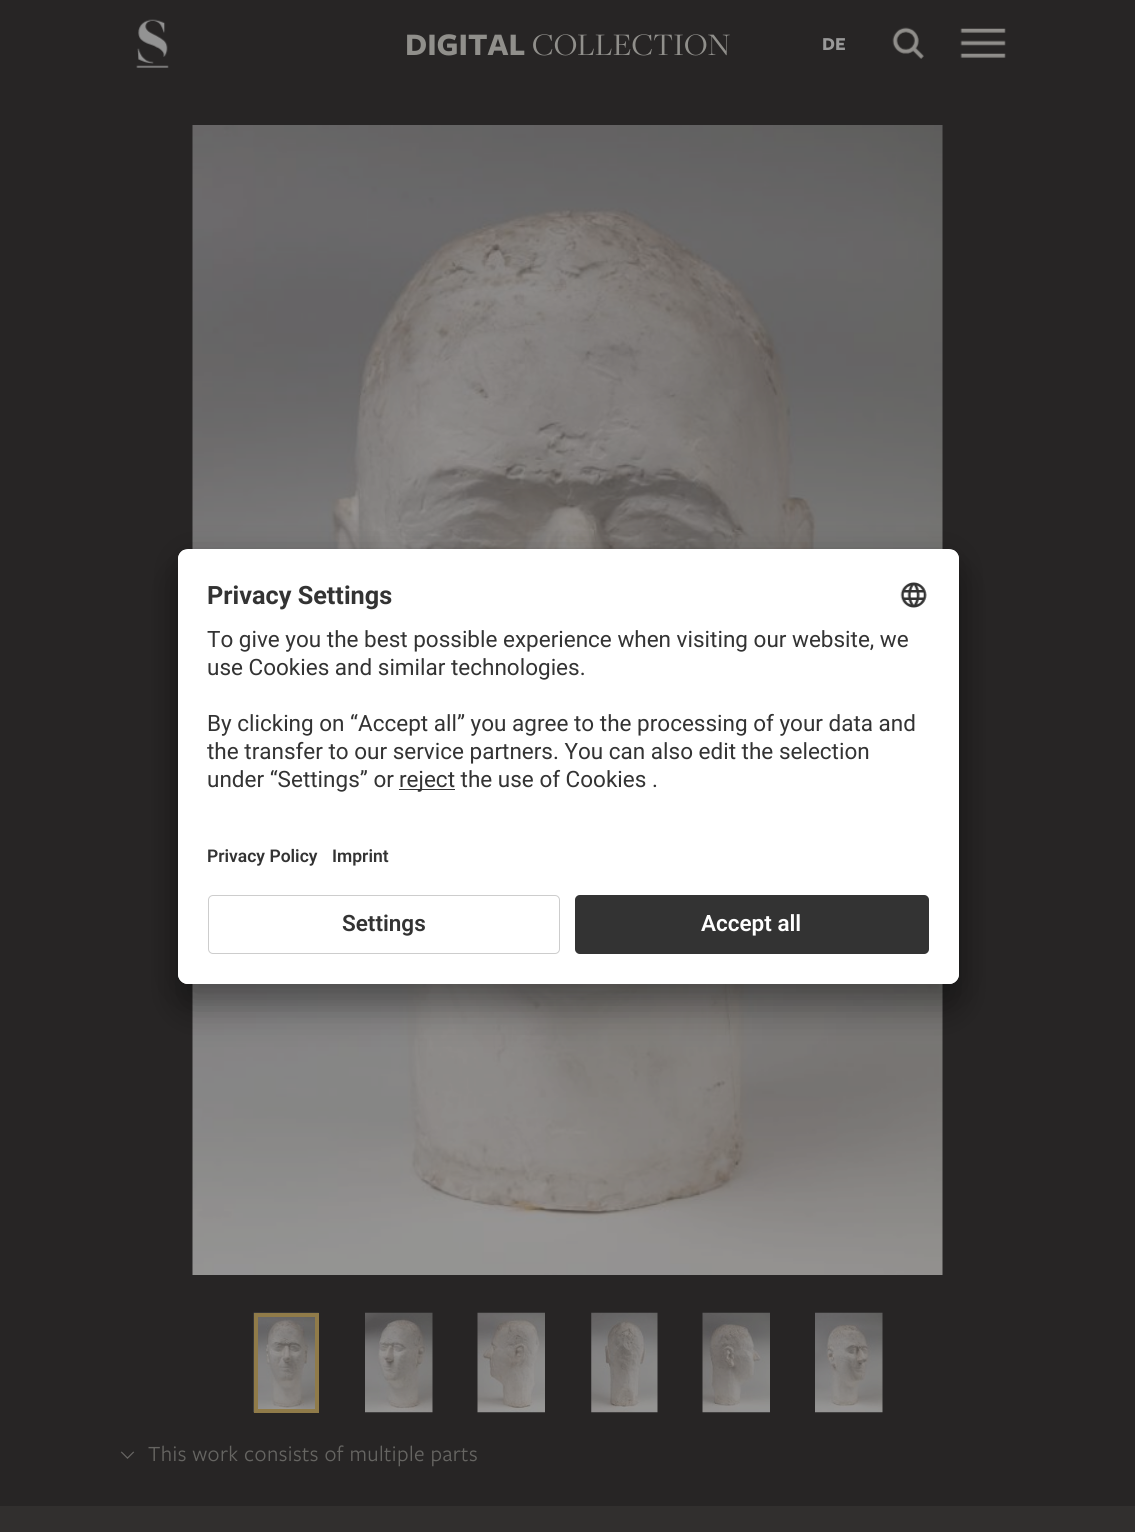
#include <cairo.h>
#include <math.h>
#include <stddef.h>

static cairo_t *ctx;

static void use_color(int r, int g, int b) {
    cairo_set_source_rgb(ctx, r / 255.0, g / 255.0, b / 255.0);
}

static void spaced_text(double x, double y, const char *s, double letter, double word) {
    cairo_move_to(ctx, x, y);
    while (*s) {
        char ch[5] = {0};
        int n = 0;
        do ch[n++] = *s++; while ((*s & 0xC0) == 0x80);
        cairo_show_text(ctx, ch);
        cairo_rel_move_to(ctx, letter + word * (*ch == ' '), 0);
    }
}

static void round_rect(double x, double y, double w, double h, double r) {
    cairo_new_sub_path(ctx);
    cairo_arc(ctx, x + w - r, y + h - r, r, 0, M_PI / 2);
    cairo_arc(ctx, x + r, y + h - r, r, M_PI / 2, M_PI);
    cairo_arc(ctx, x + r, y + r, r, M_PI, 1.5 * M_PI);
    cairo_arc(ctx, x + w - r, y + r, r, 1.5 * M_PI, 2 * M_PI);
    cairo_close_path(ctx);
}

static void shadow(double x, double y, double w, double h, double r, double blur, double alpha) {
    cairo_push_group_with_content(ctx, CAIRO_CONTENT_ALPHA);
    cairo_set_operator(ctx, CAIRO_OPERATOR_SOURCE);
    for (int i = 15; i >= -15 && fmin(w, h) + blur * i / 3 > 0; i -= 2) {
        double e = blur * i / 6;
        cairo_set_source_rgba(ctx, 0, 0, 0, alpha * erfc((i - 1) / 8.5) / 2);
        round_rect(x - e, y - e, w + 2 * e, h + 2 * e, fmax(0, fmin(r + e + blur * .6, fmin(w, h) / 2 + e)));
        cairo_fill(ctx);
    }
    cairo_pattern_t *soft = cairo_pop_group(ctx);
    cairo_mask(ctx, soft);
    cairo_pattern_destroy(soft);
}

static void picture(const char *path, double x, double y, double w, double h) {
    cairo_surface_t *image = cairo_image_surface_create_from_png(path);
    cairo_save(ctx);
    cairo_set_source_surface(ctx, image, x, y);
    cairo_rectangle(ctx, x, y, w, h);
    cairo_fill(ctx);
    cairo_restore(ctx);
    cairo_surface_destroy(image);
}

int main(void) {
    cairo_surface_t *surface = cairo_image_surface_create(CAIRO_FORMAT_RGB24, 1135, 1532);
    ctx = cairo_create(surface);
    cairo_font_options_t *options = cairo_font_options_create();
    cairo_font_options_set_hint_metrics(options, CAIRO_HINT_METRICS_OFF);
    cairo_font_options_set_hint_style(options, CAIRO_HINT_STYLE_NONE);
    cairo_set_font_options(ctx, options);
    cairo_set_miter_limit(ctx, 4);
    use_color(49, 47, 46);
    cairo_paint(ctx);
    use_color(39, 37, 37);
    cairo_rectangle(ctx, 0, 0, 1135, 1506);
    cairo_fill(ctx);
    picture("img1.png", 136, 19, 33, 49);
    cairo_select_font_face(ctx, "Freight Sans", CAIRO_FONT_SLANT_NORMAL, CAIRO_FONT_WEIGHT_BOLD);
    cairo_set_font_size(ctx, 32.5);
    use_color(144, 143, 139);
    cairo_move_to(ctx, 405, 55);
    cairo_show_text(ctx, "DIGITAL");
    cairo_select_font_face(ctx, "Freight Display", CAIRO_FONT_SLANT_NORMAL, CAIRO_FONT_WEIGHT_NORMAL);
    cairo_move_to(ctx, 532, 55);
    cairo_show_text(ctx, "COLLECTION");
    cairo_select_font_face(ctx, "Freight Sans", CAIRO_FONT_SLANT_NORMAL, CAIRO_FONT_WEIGHT_BOLD);
    cairo_set_font_size(ctx, 19);
    use_color(153, 153, 153);
    cairo_move_to(ctx, 822, 50);
    cairo_show_text(ctx, "DE");
    picture("img2.png", 892, 27, 32, 32);
    picture("img3.png", 960, 28, 46, 30);
    picture("img5.png", 192, 125, 751, 1150);
    use_color(0, 0, 0);
    shadow(178, 574, 781, 435, 10, 17.5, 0.3);
    shadow(178, 555, 781, 435, 10, 16, 0.22);
    use_color(255, 255, 255);
    round_rect(178, 549, 781, 435, 10);
    cairo_fill(ctx);
    cairo_save(ctx);
    round_rect(178, 549, 781, 435, 10);
    cairo_clip(ctx);
    cairo_new_path(ctx);
    cairo_move_to(ctx, 188, 549);
    cairo_line_to(ctx, 949, 549);
    cairo_curve_to(ctx, 954.5, 549, 959, 553.5, 959, 559);
    cairo_line_to(ctx, 959, 885);
    cairo_line_to(ctx, 178, 885);
    cairo_line_to(ctx, 178, 559);
    cairo_curve_to(ctx, 178, 553.5, 182.5, 549, 188, 549);
    cairo_close_path(ctx);
    cairo_clip(ctx);
    cairo_rectangle(ctx, 178, 550, 781, 335);
    cairo_fill(ctx);
    cairo_restore(ctx);
    cairo_select_font_face(ctx, "Roboto", CAIRO_FONT_SLANT_NORMAL, CAIRO_FONT_WEIGHT_BOLD);
    cairo_set_font_size(ctx, 25.25);
    use_color(51, 51, 51);
    cairo_move_to(ctx, 207, 604);
    cairo_show_text(ctx, "Privacy Settings");
    picture("img4.png", 900, 582, 27, 26);
    cairo_select_font_face(ctx, "Roboto", CAIRO_FONT_SLANT_NORMAL, CAIRO_FONT_WEIGHT_NORMAL);
    cairo_set_font_size(ctx, 22.5);
    cairo_move_to(ctx, 207, 647);
    cairo_show_text(ctx, "To give you the best possible experience when visiting our website, we");
    cairo_move_to(ctx, 207, 675);
    cairo_show_text(ctx, "use Cookies and similar technologies.");
    cairo_move_to(ctx, 207, 731);
    cairo_show_text(ctx, "By clicking on “Accept all” you agree to the processing of your data and");
    cairo_move_to(ctx, 207, 759);
    cairo_show_text(ctx, "the transfer to our service partners. You can also edit the selection");
    cairo_move_to(ctx, 207, 787);
    cairo_show_text(ctx, "under “Settings” or");
    cairo_rectangle(ctx, 399, 789, 56, 1);
    cairo_fill(ctx);
    cairo_move_to(ctx, 399, 787);
    cairo_show_text(ctx, "reject the use of Cookies .");
    cairo_select_font_face(ctx, "Roboto SemiBold", CAIRO_FONT_SLANT_NORMAL, CAIRO_FONT_WEIGHT_NORMAL);
    cairo_set_font_size(ctx, 17.5);
    cairo_move_to(ctx, 207, 862);
    cairo_show_text(ctx, "Privacy Policy");
    cairo_move_to(ctx, 332, 862);
    cairo_show_text(ctx, "Imprint");
    use_color(255, 255, 255);
    cairo_new_path(ctx);
    cairo_move_to(ctx, 178, 885);
    cairo_line_to(ctx, 959, 885);
    cairo_line_to(ctx, 959, 974);
    cairo_curve_to(ctx, 959, 979.5, 954.5, 984, 949, 984);
    cairo_line_to(ctx, 188, 984);
    cairo_curve_to(ctx, 182.5, 984, 178, 979.5, 178, 974);
    cairo_close_path(ctx);
    cairo_fill(ctx);
    round_rect(208.5, 895.5, 351, 58, 4.5);
    use_color(205, 205, 205);
    cairo_set_line_width(ctx, 1);
    cairo_stroke(ctx);
    cairo_set_font_size(ctx, 22.5);
    use_color(51, 51, 51);
    cairo_move_to(ctx, 342, 931);
    cairo_show_text(ctx, "Settings");
    round_rect(575, 895, 354, 59, 5);
    cairo_fill(ctx);
    round_rect(575.5, 895.5, 353, 58, 4.5);
    cairo_set_source_rgba(ctx, 0.208, 0.208, 0.208, 0.25);
    cairo_stroke(ctx);
    use_color(255, 255, 255);
    cairo_move_to(ctx, 701, 931);
    cairo_show_text(ctx, "Accept all");
    picture("img6.png", 253, 1312, 66, 101);
    cairo_rectangle(ctx, 256, 1315, 61, 96);
    use_color(144, 123, 73);
    cairo_set_line_width(ctx, 4);
    cairo_stroke(ctx);
    picture("img7.png", 365, 1312, 68, 101);
    picture("img8.png", 477, 1312, 68, 101);
    picture("img9.png", 591, 1312, 67, 101);
    picture("img10.png", 702, 1312, 68, 101);
    picture("img11.png", 815, 1312, 68, 101);
    picture("img12.png", 120, 1451, 15, 8);
    cairo_select_font_face(ctx, "Freight Sans", CAIRO_FONT_SLANT_NORMAL, CAIRO_FONT_WEIGHT_NORMAL);
    use_color(102, 101, 98);
    spaced_text(148, 1461, "This work consists of multiple parts", 0.4, 0);
    cairo_surface_write_to_png(surface, "result.png");
    cairo_font_options_destroy(options);
    cairo_destroy(ctx);
    cairo_surface_destroy(surface);
    return 0;
}
